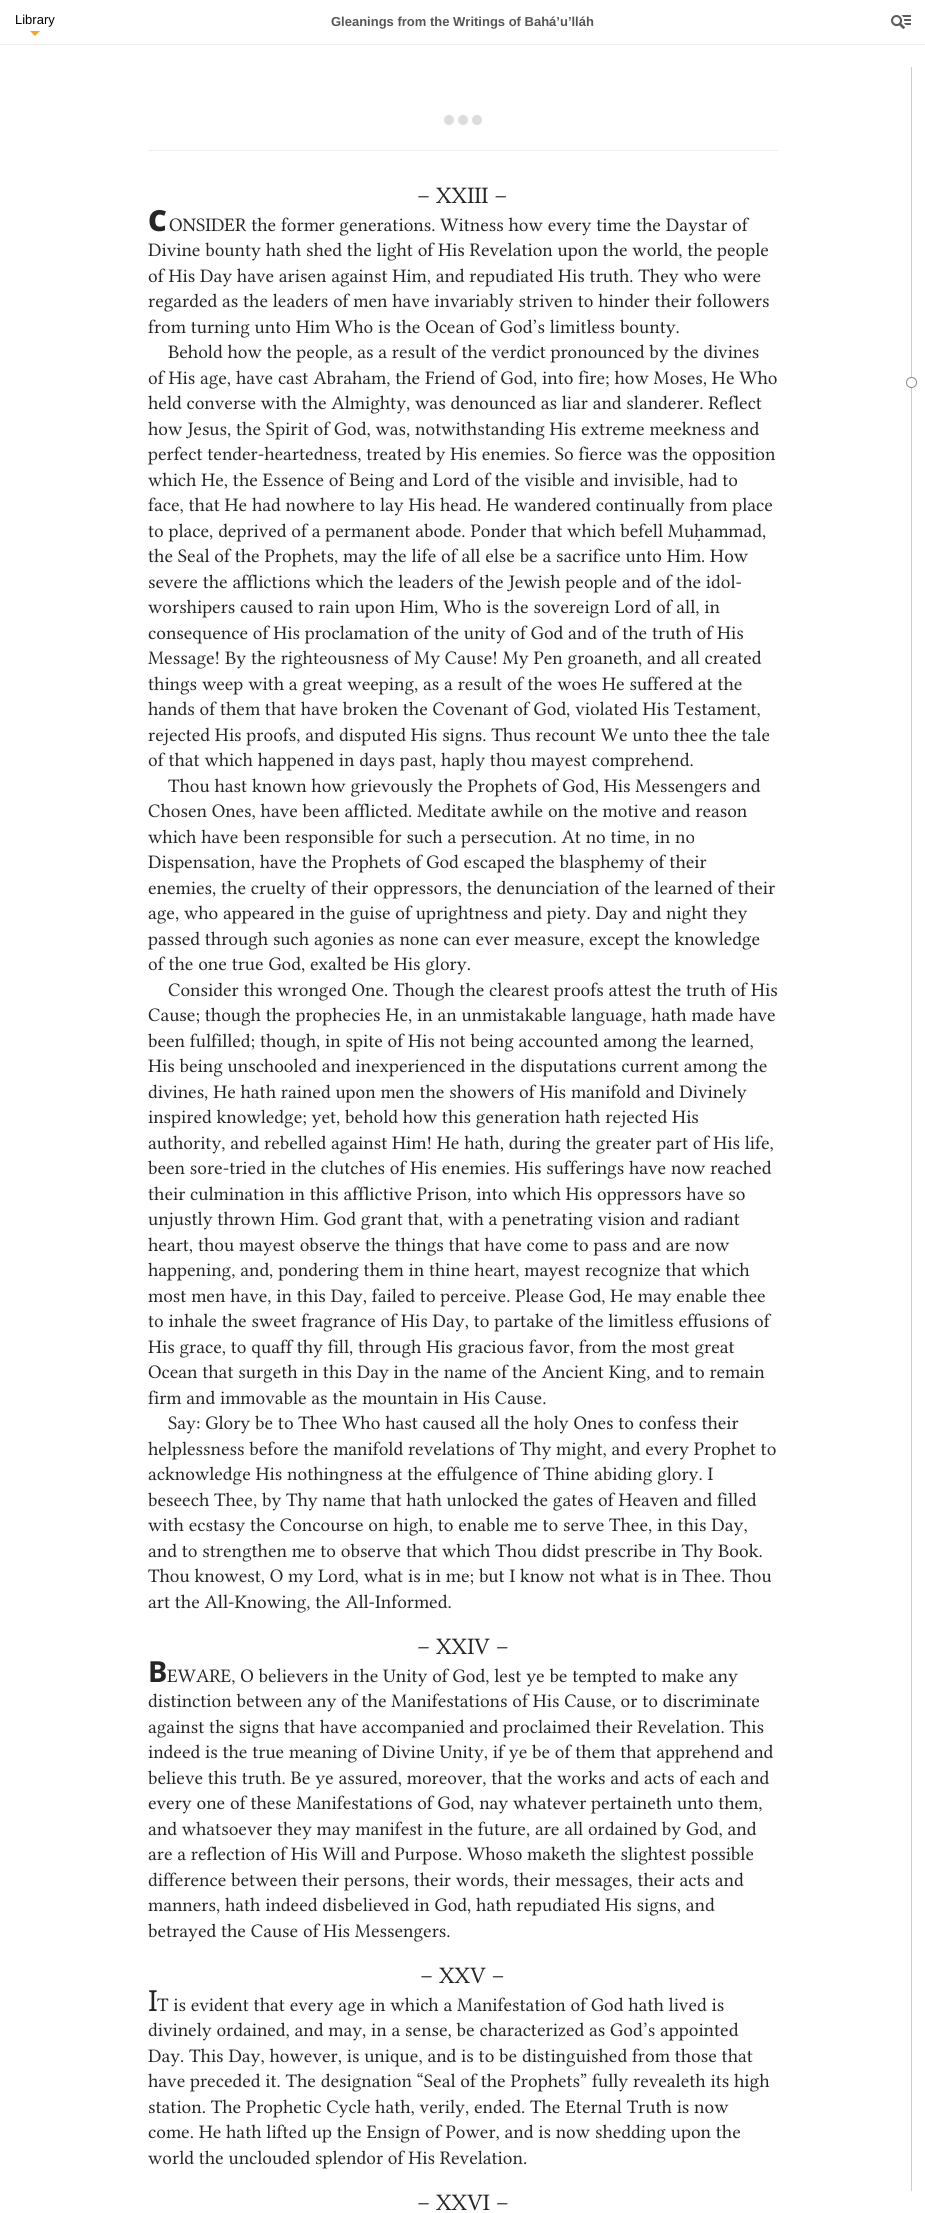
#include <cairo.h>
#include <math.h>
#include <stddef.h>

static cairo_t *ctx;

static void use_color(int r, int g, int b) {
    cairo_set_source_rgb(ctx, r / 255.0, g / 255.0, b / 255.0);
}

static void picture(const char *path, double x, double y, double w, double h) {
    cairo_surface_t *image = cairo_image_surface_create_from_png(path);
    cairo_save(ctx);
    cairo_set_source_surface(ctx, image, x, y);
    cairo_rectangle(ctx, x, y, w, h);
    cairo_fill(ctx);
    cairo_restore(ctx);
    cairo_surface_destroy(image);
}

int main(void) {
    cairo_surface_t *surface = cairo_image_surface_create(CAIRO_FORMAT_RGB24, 925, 2213);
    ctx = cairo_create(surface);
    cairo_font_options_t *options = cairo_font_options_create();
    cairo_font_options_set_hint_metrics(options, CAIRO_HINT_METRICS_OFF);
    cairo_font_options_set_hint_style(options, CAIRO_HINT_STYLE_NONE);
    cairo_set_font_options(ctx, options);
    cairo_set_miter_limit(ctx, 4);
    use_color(255, 255, 255);
    cairo_paint(ctx);
    use_color(238, 238, 238);
    cairo_rectangle(ctx, 0, 44, 925, 1);
    cairo_fill(ctx);
    cairo_select_font_face(ctx, "Liberation Sans", CAIRO_FONT_SLANT_NORMAL, CAIRO_FONT_WEIGHT_NORMAL);
    cairo_set_font_size(ctx, 13);
    use_color(0, 0, 0);
    cairo_move_to(ctx, 15, 24);
    cairo_show_text(ctx, "Library");
    use_color(245, 166, 35);
    cairo_new_path(ctx);
    cairo_move_to(ctx, 30, 31);
    cairo_line_to(ctx, 40, 31);
    cairo_line_to(ctx, 35, 36);
    cairo_close_path(ctx);
    cairo_fill(ctx);
    cairo_select_font_face(ctx, "Liberation Sans", CAIRO_FONT_SLANT_NORMAL, CAIRO_FONT_WEIGHT_BOLD);
    use_color(86, 86, 86);
    cairo_move_to(ctx, 331, 26);
    cairo_show_text(ctx, "Gleanings from the Writings of Bahá’u’lláh");
    picture("img1.png", 891, 15, 20, 14);
    use_color(238, 238, 238);
    cairo_rectangle(ctx, 148, 150, 630, 1);
    cairo_fill(ctx);
    use_color(221, 221, 221);
    cairo_arc(ctx, 449, 120, 5, 0, 2 * M_PI);
    cairo_fill(ctx);
    cairo_arc(ctx, 463, 120, 5, 0, 2 * M_PI);
    cairo_fill(ctx);
    cairo_arc(ctx, 477, 120, 5, 0, 2 * M_PI);
    cairo_fill(ctx);
    cairo_select_font_face(ctx, "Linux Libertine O", CAIRO_FONT_SLANT_NORMAL, CAIRO_FONT_WEIGHT_NORMAL);
    cairo_set_font_size(ctx, 21);
    use_color(38, 38, 38);
    cairo_move_to(ctx, 417, 203);
    cairo_show_text(ctx, "– XXIII –");
    cairo_select_font_face(ctx, "Noto Sans Black", CAIRO_FONT_SLANT_NORMAL, CAIRO_FONT_WEIGHT_NORMAL);
    cairo_set_font_size(ctx, 29);
    cairo_move_to(ctx, 148, 231);
    cairo_show_text(ctx, "C");
    cairo_select_font_face(ctx, "Linux Libertine O", CAIRO_FONT_SLANT_NORMAL, CAIRO_FONT_WEIGHT_NORMAL);
    cairo_set_font_size(ctx, 17);
    cairo_move_to(ctx, 169, 231);
    cairo_show_text(ctx, "ONSIDER the former generations. Witness how every time the Daystar of");
    cairo_move_to(ctx, 148, 256);
    cairo_show_text(ctx, "Divine bounty hath shed the light of His Revelation upon the world, the people");
    cairo_move_to(ctx, 148, 282);
    cairo_show_text(ctx, "of His Day have arisen against Him, and repudiated His truth. They who were");
    cairo_move_to(ctx, 148, 307);
    cairo_show_text(ctx, "regarded as the leaders of men have invariably striven to hinder their followers");
    cairo_move_to(ctx, 148, 333);
    cairo_show_text(ctx, "from turning unto Him Who is the Ocean of God’s limitless bounty.");
    cairo_move_to(ctx, 168, 358);
    cairo_show_text(ctx, "Behold how the people, as a result of the verdict pronounced by the divines");
    cairo_move_to(ctx, 148, 384);
    cairo_show_text(ctx, "of His age, have cast Abraham, the Friend of God, into fire; how Moses, He Who");
    cairo_move_to(ctx, 148, 409);
    cairo_show_text(ctx, "held converse with the Almighty, was denounced as liar and slanderer. Reflect");
    cairo_move_to(ctx, 148, 435);
    cairo_show_text(ctx, "how Jesus, the Spirit of God, was, notwithstanding His extreme meekness and");
    cairo_move_to(ctx, 148, 460);
    cairo_show_text(ctx, "perfect tender-heartedness, treated by His enemies. So fierce was the opposition");
    cairo_move_to(ctx, 148, 486);
    cairo_show_text(ctx, "which He, the Essence of Being and Lord of the visible and invisible, had to");
    cairo_move_to(ctx, 148, 511);
    cairo_show_text(ctx, "face, that He had nowhere to lay His head. He wandered continually from place");
    cairo_move_to(ctx, 148, 537);
    cairo_show_text(ctx, "to place, deprived of a permanent abode. Ponder that which befell Muḥammad,");
    cairo_move_to(ctx, 148, 562);
    cairo_show_text(ctx, "the Seal of the Prophets, may the life of all else be a sacrifice unto Him. How");
    cairo_move_to(ctx, 148, 588);
    cairo_show_text(ctx, "severe the afflictions which the leaders of the Jewish people and of the idol-");
    cairo_move_to(ctx, 148, 613);
    cairo_show_text(ctx, "worshipers caused to rain upon Him, Who is the sovereign Lord of all, in");
    cairo_move_to(ctx, 148, 639);
    cairo_show_text(ctx, "consequence of His proclamation of the unity of God and of the truth of His");
    cairo_move_to(ctx, 148, 664);
    cairo_show_text(ctx, "Message! By the righteousness of My Cause! My Pen groaneth, and all created");
    cairo_move_to(ctx, 148, 690);
    cairo_show_text(ctx, "things weep with a great weeping, as a result of the woes He suffered at the");
    cairo_move_to(ctx, 148, 715);
    cairo_show_text(ctx, "hands of them that have broken the Covenant of God, violated His Testament,");
    cairo_move_to(ctx, 148, 741);
    cairo_show_text(ctx, "rejected His proofs, and disputed His signs. Thus recount We unto thee the tale");
    cairo_move_to(ctx, 148, 766);
    cairo_show_text(ctx, "of that which happened in days past, haply thou mayest comprehend.");
    cairo_move_to(ctx, 168, 792);
    cairo_show_text(ctx, "Thou hast known how grievously the Prophets of God, His Messengers and");
    cairo_move_to(ctx, 148, 817);
    cairo_show_text(ctx, "Chosen Ones, have been afflicted. Meditate awhile on the motive and reason");
    cairo_move_to(ctx, 148, 843);
    cairo_show_text(ctx, "which have been responsible for such a persecution. At no time, in no");
    cairo_move_to(ctx, 148, 868);
    cairo_show_text(ctx, "Dispensation, have the Prophets of God escaped the blasphemy of their");
    cairo_move_to(ctx, 148, 894);
    cairo_show_text(ctx, "enemies, the cruelty of their oppressors, the denunciation of the learned of their");
    cairo_move_to(ctx, 148, 919);
    cairo_show_text(ctx, "age, who appeared in the guise of uprightness and piety. Day and night they");
    cairo_move_to(ctx, 148, 945);
    cairo_show_text(ctx, "passed through such agonies as none can ever measure, except the knowledge");
    cairo_move_to(ctx, 148, 970);
    cairo_show_text(ctx, "of the one true God, exalted be His glory.");
    cairo_move_to(ctx, 168, 996);
    cairo_show_text(ctx, "Consider this wronged One. Though the clearest proofs attest the truth of His");
    cairo_move_to(ctx, 148, 1021);
    cairo_show_text(ctx, "Cause; though the prophecies He, in an unmistakable language, hath made have");
    cairo_move_to(ctx, 148, 1047);
    cairo_show_text(ctx, "been fulfilled; though, in spite of His not being accounted among the learned,");
    cairo_move_to(ctx, 148, 1072);
    cairo_show_text(ctx, "His being unschooled and inexperienced in the disputations current among the");
    cairo_move_to(ctx, 148, 1098);
    cairo_show_text(ctx, "divines, He hath rained upon men the showers of His manifold and Divinely");
    cairo_move_to(ctx, 148, 1123);
    cairo_show_text(ctx, "inspired knowledge; yet, behold how this generation hath rejected His");
    cairo_move_to(ctx, 148, 1149);
    cairo_show_text(ctx, "authority, and rebelled against Him! He hath, during the greater part of His life,");
    cairo_move_to(ctx, 148, 1174);
    cairo_show_text(ctx, "been sore-tried in the clutches of His enemies. His sufferings have now reached");
    cairo_move_to(ctx, 148, 1200);
    cairo_show_text(ctx, "their culmination in this afflictive Prison, into which His oppressors have so");
    cairo_move_to(ctx, 148, 1225);
    cairo_show_text(ctx, "unjustly thrown Him. God grant that, with a penetrating vision and radiant");
    cairo_move_to(ctx, 148, 1251);
    cairo_show_text(ctx, "heart, thou mayest observe the things that have come to pass and are now");
    cairo_move_to(ctx, 148, 1276);
    cairo_show_text(ctx, "happening, and, pondering them in thine heart, mayest recognize that which");
    cairo_move_to(ctx, 148, 1302);
    cairo_show_text(ctx, "most men have, in this Day, failed to perceive. Please God, He may enable thee");
    cairo_move_to(ctx, 148, 1327);
    cairo_show_text(ctx, "to inhale the sweet fragrance of His Day, to partake of the limitless effusions of");
    cairo_move_to(ctx, 148, 1353);
    cairo_show_text(ctx, "His grace, to quaff thy fill, through His gracious favor, from the most great");
    cairo_move_to(ctx, 148, 1378);
    cairo_show_text(ctx, "Ocean that surgeth in this Day in the name of the Ancient King, and to remain");
    cairo_move_to(ctx, 148, 1404);
    cairo_show_text(ctx, "firm and immovable as the mountain in His Cause.");
    cairo_move_to(ctx, 168, 1429);
    cairo_show_text(ctx, "Say: Glory be to Thee Who hast caused all the holy Ones to confess their");
    cairo_move_to(ctx, 148, 1455);
    cairo_show_text(ctx, "helplessness before the manifold revelations of Thy might, and every Prophet to");
    cairo_move_to(ctx, 148, 1480);
    cairo_show_text(ctx, "acknowledge His nothingness at the effulgence of Thine abiding glory. I");
    cairo_move_to(ctx, 148, 1506);
    cairo_show_text(ctx, "beseech Thee, by Thy name that hath unlocked the gates of Heaven and filled");
    cairo_move_to(ctx, 148, 1531);
    cairo_show_text(ctx, "with ecstasy the Concourse on high, to enable me to serve Thee, in this Day,");
    cairo_move_to(ctx, 148, 1557);
    cairo_show_text(ctx, "and to strengthen me to observe that which Thou didst prescribe in Thy Book.");
    cairo_move_to(ctx, 148, 1582);
    cairo_show_text(ctx, "Thou knowest, O my Lord, what is in me; but I know not what is in Thee. Thou");
    cairo_move_to(ctx, 148, 1608);
    cairo_show_text(ctx, "art the All-Knowing, the All-Informed.");
    cairo_set_font_size(ctx, 21);
    cairo_move_to(ctx, 417, 1654);
    cairo_show_text(ctx, "– XXIV –");
    cairo_select_font_face(ctx, "Noto Sans", CAIRO_FONT_SLANT_NORMAL, CAIRO_FONT_WEIGHT_BOLD);
    cairo_set_font_size(ctx, 29);
    cairo_move_to(ctx, 148, 1682);
    cairo_show_text(ctx, "B");
    cairo_select_font_face(ctx, "Linux Libertine O", CAIRO_FONT_SLANT_NORMAL, CAIRO_FONT_WEIGHT_NORMAL);
    cairo_set_font_size(ctx, 17);
    cairo_move_to(ctx, 167, 1682);
    cairo_show_text(ctx, "EWARE, O believers in the Unity of God, lest ye be tempted to make any");
    cairo_move_to(ctx, 148, 1707);
    cairo_show_text(ctx, "distinction between any of the Manifestations of His Cause, or to discriminate");
    cairo_move_to(ctx, 148, 1733);
    cairo_show_text(ctx, "against the signs that have accompanied and proclaimed their Revelation. This");
    cairo_move_to(ctx, 148, 1758);
    cairo_show_text(ctx, "indeed is the true meaning of Divine Unity, if ye be of them that apprehend and");
    cairo_move_to(ctx, 148, 1784);
    cairo_show_text(ctx, "believe this truth. Be ye assured, moreover, that the works and acts of each and");
    cairo_move_to(ctx, 148, 1809);
    cairo_show_text(ctx, "every one of these Manifestations of God, nay whatever pertaineth unto them,");
    cairo_move_to(ctx, 148, 1835);
    cairo_show_text(ctx, "and whatsoever they may manifest in the future, are all ordained by God, and");
    cairo_move_to(ctx, 148, 1860);
    cairo_show_text(ctx, "are a reflection of His Will and Purpose. Whoso maketh the slightest possible");
    cairo_move_to(ctx, 148, 1886);
    cairo_show_text(ctx, "difference between their persons, their words, their messages, their acts and");
    cairo_move_to(ctx, 148, 1911);
    cairo_show_text(ctx, "manners, hath indeed disbelieved in God, hath repudiated His signs, and");
    cairo_move_to(ctx, 148, 1937);
    cairo_show_text(ctx, "betrayed the Cause of His Messengers.");
    cairo_set_font_size(ctx, 21);
    cairo_move_to(ctx, 420, 1983);
    cairo_show_text(ctx, "– XXV –");
    cairo_select_font_face(ctx, "Noto Sans", CAIRO_FONT_SLANT_NORMAL, CAIRO_FONT_WEIGHT_NORMAL);
    cairo_set_font_size(ctx, 29);
    cairo_move_to(ctx, 148, 2011);
    cairo_show_text(ctx, "I");
    cairo_select_font_face(ctx, "Linux Libertine O", CAIRO_FONT_SLANT_NORMAL, CAIRO_FONT_WEIGHT_NORMAL);
    cairo_set_font_size(ctx, 17);
    cairo_move_to(ctx, 157, 2011);
    cairo_show_text(ctx, "T is evident that every age in which a Manifestation of God hath lived is");
    cairo_move_to(ctx, 148, 2036);
    cairo_show_text(ctx, "divinely ordained, and may, in a sense, be characterized as God’s appointed");
    cairo_move_to(ctx, 148, 2062);
    cairo_show_text(ctx, "Day. This Day, however, is unique, and is to be distinguished from those that");
    cairo_move_to(ctx, 148, 2087);
    cairo_show_text(ctx, "have preceded it. The designation “Seal of the Prophets” fully revealeth its high");
    cairo_move_to(ctx, 148, 2113);
    cairo_show_text(ctx, "station. The Prophetic Cycle hath, verily, ended. The Eternal Truth is now");
    cairo_move_to(ctx, 148, 2138);
    cairo_show_text(ctx, "come. He hath lifted up the Ensign of Power, and is now shedding upon the");
    cairo_move_to(ctx, 148, 2164);
    cairo_show_text(ctx, "world the unclouded splendor of His Revelation.");
    cairo_set_font_size(ctx, 21);
    cairo_move_to(ctx, 417, 2210);
    cairo_show_text(ctx, "– XXVI –");
    use_color(204, 204, 204);
    cairo_rectangle(ctx, 911, 67, 1, 2124);
    cairo_fill(ctx);
    use_color(255, 255, 255);
    cairo_arc(ctx, 911.5, 382.5, 5, 0, 2 * M_PI);
    cairo_fill_preserve(ctx);
    use_color(136, 136, 136);
    cairo_set_line_width(ctx, 1);
    cairo_stroke(ctx);
    cairo_surface_write_to_png(surface, "result.png");
    cairo_font_options_destroy(options);
    cairo_destroy(ctx);
    cairo_surface_destroy(surface);
    return 0;
}
